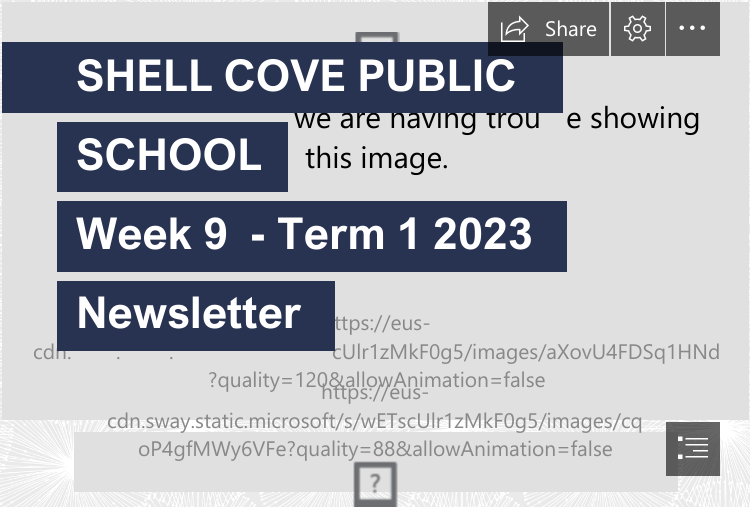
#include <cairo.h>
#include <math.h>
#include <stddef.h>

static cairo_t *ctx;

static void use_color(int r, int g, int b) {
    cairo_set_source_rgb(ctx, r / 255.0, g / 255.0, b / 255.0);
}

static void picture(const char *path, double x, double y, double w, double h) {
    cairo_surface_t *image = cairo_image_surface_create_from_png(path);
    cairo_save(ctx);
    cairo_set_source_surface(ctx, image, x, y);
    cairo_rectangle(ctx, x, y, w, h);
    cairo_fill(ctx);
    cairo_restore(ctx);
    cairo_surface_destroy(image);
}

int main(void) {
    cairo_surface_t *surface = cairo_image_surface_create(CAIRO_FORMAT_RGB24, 750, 507);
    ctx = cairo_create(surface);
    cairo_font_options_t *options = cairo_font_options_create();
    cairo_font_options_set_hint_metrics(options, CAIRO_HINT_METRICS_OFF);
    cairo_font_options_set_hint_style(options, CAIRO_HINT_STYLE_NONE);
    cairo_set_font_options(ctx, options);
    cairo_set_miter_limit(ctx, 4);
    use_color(234, 234, 234);
    cairo_paint(ctx);
    picture("img4.png", 0, 0, 750, 507);
    use_color(224, 224, 224);
    cairo_rectangle(ctx, 2, 2, 747, 418);
    cairo_fill(ctx);
    cairo_select_font_face(ctx, "Segoe UI", CAIRO_FONT_SLANT_NORMAL, CAIRO_FONT_WEIGHT_NORMAL);
    cairo_set_font_size(ctx, 30);
    use_color(0, 0, 0);
    cairo_move_to(ctx, 294, 128);
    cairo_show_text(ctx, "we are having trou");
    use_color(40, 50, 81);
    cairo_rectangle(ctx, 2, 42, 561, 71);
    cairo_fill(ctx);
    cairo_set_source_rgba(ctx, 0, 0, 0, 0.6);
    cairo_rectangle(ctx, 488, 2, 121, 54);
    cairo_fill(ctx);
    picture("img1.png", 501, 15, 28, 27);
    cairo_set_font_size(ctx, 21);
    use_color(255, 255, 255);
    cairo_move_to(ctx, 545, 36);
    cairo_show_text(ctx, "Share");
    use_color(90, 90, 90);
    cairo_rectangle(ctx, 611, 2, 54, 54);
    cairo_fill(ctx);
    picture("img2.png", 624, 15, 27, 27);
    cairo_rectangle(ctx, 666, 2, 54, 54);
    cairo_fill(ctx);
    picture("img3.png", 679, 25, 26, 5);
    cairo_select_font_face(ctx, "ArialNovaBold", CAIRO_FONT_SLANT_NORMAL, CAIRO_FONT_WEIGHT_BOLD);
    cairo_set_font_size(ctx, 44);
    use_color(255, 255, 255);
    cairo_move_to(ctx, 76, 91);
    cairo_show_text(ctx, "SHELL COVE PUBLIC");
    use_color(40, 50, 81);
    cairo_rectangle(ctx, 57, 122, 231, 70);
    cairo_fill(ctx);
    use_color(255, 255, 255);
    cairo_move_to(ctx, 76, 170);
    cairo_show_text(ctx, "SCHOOL");
    use_color(40, 50, 81);
    cairo_rectangle(ctx, 57, 201, 510, 71);
    cairo_fill(ctx);
    use_color(255, 255, 255);
    cairo_move_to(ctx, 76, 249);
    cairo_show_text(ctx, "Week 9  - Term 1 2023");
    cairo_select_font_face(ctx, "Segoe UI", CAIRO_FONT_SLANT_NORMAL, CAIRO_FONT_WEIGHT_NORMAL);
    cairo_set_font_size(ctx, 21);
    use_color(136, 136, 136);
    cairo_move_to(ctx, 334, 330);
    cairo_show_text(ctx, "ttps://eus-");
    cairo_move_to(ctx, 33, 359);
    cairo_show_text(ctx, "cdn.");
    cairo_move_to(ctx, 332, 359);
    cairo_show_text(ctx, "cUlr1zMkF0g5/images/aXovU4FDSq1HNd");
    use_color(40, 50, 81);
    cairo_rectangle(ctx, 57, 281, 278, 70);
    cairo_fill(ctx);
    cairo_select_font_face(ctx, "ArialNovaBold", CAIRO_FONT_SLANT_NORMAL, CAIRO_FONT_WEIGHT_BOLD);
    cairo_set_font_size(ctx, 44);
    use_color(255, 255, 255);
    cairo_move_to(ctx, 76, 328);
    cairo_show_text(ctx, "Newsletter");
    picture("img5.png", 355, 32, 45, 10);
    cairo_select_font_face(ctx, "Segoe UI", CAIRO_FONT_SLANT_NORMAL, CAIRO_FONT_WEIGHT_NORMAL);
    cairo_set_font_size(ctx, 30);
    use_color(0, 0, 0);
    cairo_move_to(ctx, 566, 128);
    cairo_show_text(ctx, "e showing");
    cairo_move_to(ctx, 305, 168);
    cairo_show_text(ctx, "this image.");
    cairo_set_font_size(ctx, 21);
    use_color(136, 136, 136);
    cairo_move_to(ctx, 116, 359);
    cairo_show_text(ctx, ".");
    cairo_move_to(ctx, 169, 359);
    cairo_show_text(ctx, ".");
    cairo_move_to(ctx, 208, 387);
    cairo_show_text(ctx, "?quality=120&allowAnimation=false");
    use_color(224, 224, 224);
    cairo_rectangle(ctx, 74, 432, 604, 60);
    cairo_fill(ctx);
    use_color(136, 136, 136);
    cairo_move_to(ctx, 321, 399);
    cairo_show_text(ctx, "https://eus-");
    cairo_move_to(ctx, 107, 428);
    cairo_show_text(ctx, "cdn.sway.static.microsoft/s/wETscUlr1zMkF0g5/images/cq");
    cairo_move_to(ctx, 138, 456);
    cairo_show_text(ctx, "oP4gfMWy6VFe?quality=88&allowAnimation=false");
    picture("img6.png", 353, 461, 45, 46);
    cairo_set_source_rgba(ctx, 0, 0, 0, 0.6);
    cairo_rectangle(ctx, 666, 422, 54, 54);
    cairo_fill(ctx);
    picture("img7.png", 678, 436, 30, 23);
    cairo_surface_write_to_png(surface, "result.png");
    cairo_font_options_destroy(options);
    cairo_destroy(ctx);
    cairo_surface_destroy(surface);
    return 0;
}
